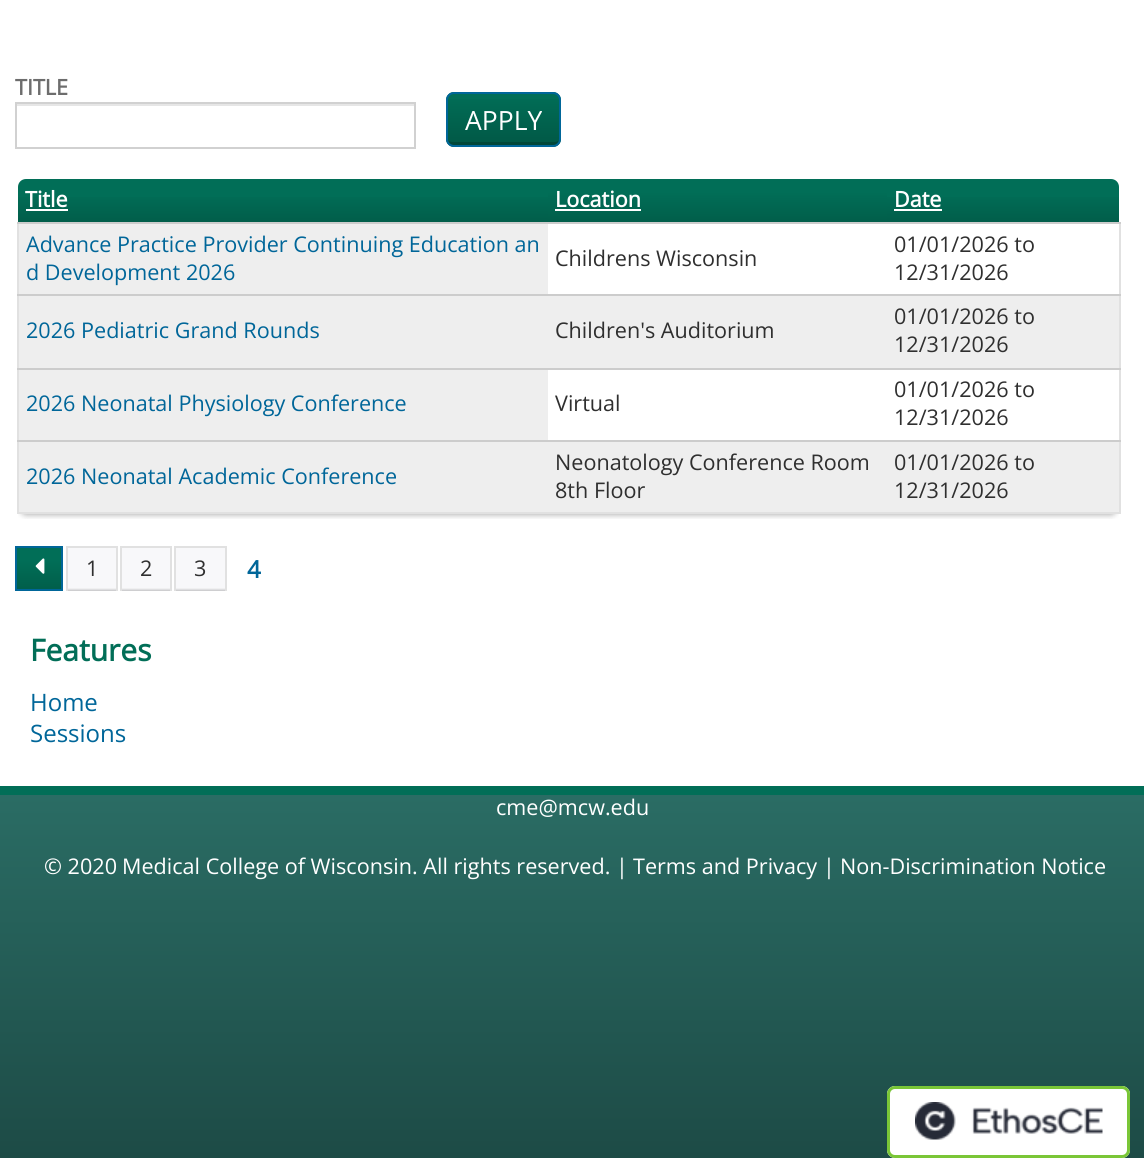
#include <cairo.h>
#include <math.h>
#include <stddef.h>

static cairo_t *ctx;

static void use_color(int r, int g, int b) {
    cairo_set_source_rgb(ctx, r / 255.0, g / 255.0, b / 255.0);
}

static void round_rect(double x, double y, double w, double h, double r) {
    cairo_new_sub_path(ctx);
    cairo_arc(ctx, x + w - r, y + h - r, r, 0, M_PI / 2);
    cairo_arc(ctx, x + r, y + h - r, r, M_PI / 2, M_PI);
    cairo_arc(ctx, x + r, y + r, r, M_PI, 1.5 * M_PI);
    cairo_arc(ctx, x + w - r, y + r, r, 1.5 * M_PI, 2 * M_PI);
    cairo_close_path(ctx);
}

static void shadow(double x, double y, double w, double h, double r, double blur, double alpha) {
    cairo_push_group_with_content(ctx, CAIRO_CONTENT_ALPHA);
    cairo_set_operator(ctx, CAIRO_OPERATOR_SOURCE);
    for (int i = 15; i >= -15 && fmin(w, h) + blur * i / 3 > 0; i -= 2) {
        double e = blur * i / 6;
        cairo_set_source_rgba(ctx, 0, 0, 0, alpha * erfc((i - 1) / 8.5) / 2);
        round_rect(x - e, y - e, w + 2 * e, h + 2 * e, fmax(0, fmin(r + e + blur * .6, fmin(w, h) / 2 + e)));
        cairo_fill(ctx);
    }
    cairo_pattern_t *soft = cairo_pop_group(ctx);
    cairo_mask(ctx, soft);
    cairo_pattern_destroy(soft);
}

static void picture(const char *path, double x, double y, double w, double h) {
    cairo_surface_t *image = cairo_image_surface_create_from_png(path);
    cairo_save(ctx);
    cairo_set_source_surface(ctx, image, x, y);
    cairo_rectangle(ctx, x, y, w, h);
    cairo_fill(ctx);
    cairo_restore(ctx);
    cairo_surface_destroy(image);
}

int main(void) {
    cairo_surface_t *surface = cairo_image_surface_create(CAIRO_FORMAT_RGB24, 1144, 1158);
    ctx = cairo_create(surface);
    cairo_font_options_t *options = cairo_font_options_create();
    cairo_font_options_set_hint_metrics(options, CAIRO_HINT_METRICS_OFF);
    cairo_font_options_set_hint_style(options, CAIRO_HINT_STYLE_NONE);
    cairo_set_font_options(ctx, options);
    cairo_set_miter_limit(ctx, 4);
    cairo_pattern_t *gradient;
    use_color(255, 255, 255);
    cairo_paint(ctx);
    cairo_select_font_face(ctx, "Open Sans", CAIRO_FONT_SLANT_NORMAL, CAIRO_FONT_WEIGHT_BOLD);
    cairo_set_font_size(ctx, 21.6);
    use_color(109, 109, 109);
    cairo_move_to(ctx, 15, 95);
    cairo_show_text(ctx, "TITLE");
    use_color(230, 230, 230);
    cairo_rectangle(ctx, 17, 104, 397, 2);
    cairo_fill(ctx);
    cairo_rectangle(ctx, 16, 103, 399, 45);
    use_color(209, 209, 209);
    cairo_stroke(ctx);
    use_color(1, 110, 87);
    round_rect(446, 92, 115, 55, 8);
    cairo_fill(ctx);
    cairo_save(ctx);
    round_rect(446, 92, 115, 55, 8);
    cairo_clip(ctx);
    gradient = cairo_pattern_create_linear(503, 146, 503, 93);
    cairo_pattern_add_color_stop_rgba(gradient, 0, 0, 0, 0, 0.2);
    cairo_pattern_add_color_stop_rgba(gradient, 1, 0, 0, 0, 0);
    cairo_set_source(ctx, gradient);
    cairo_pattern_destroy(gradient);
    cairo_rectangle(ctx, 446, 99, 115, 47);
    cairo_fill(ctx);
    cairo_restore(ctx);
    cairo_set_source_rgba(ctx, 0, 0, 0, 0.2);
    cairo_new_path(ctx);
    cairo_move_to(ctx, 447, 139);
    cairo_curve_to(ctx, 447, 150, 463, 146, 470, 146);
    cairo_line_to(ctx, 537, 146);
    cairo_curve_to(ctx, 544, 146, 560, 150, 560, 139);
    cairo_curve_to(ctx, 559, 141, 557, 142, 554, 142);
    cairo_line_to(ctx, 453, 142);
    cairo_curve_to(ctx, 450, 142, 448, 141, 447, 139);
    cairo_close_path(ctx);
    cairo_fill(ctx);
    round_rect(447, 93, 113, 53, 7);
    use_color(0, 102, 153);
    cairo_stroke(ctx);
    cairo_select_font_face(ctx, "Open Sans", CAIRO_FONT_SLANT_NORMAL, CAIRO_FONT_WEIGHT_NORMAL);
    cairo_set_font_size(ctx, 26.5);
    use_color(255, 255, 255);
    cairo_move_to(ctx, 465, 130);
    cairo_show_text(ctx, "APPLY");
    cairo_save(ctx);
    cairo_rectangle(ctx, 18, 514, 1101, 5);
    cairo_clip(ctx);
    use_color(0, 0, 0);
    shadow(21, 230, 1095, 285, 5, 3, 0.3);
    cairo_restore(ctx);
    use_color(1, 110, 87);
    cairo_new_path(ctx);
    cairo_move_to(ctx, 26, 179);
    cairo_line_to(ctx, 548, 179);
    cairo_line_to(ctx, 548, 222);
    cairo_line_to(ctx, 18, 222);
    cairo_line_to(ctx, 18, 187);
    cairo_curve_to(ctx, 18, 182.5, 21.5, 179, 26, 179);
    cairo_close_path(ctx);
    cairo_fill(ctx);
    gradient = cairo_pattern_create_linear(283, 222, 283, 179);
    cairo_pattern_add_color_stop_rgba(gradient, 0, 0, 0, 0, 0.15);
    cairo_pattern_add_color_stop_rgba(gradient, 0.7, 0, 0, 0, 0);
    cairo_set_source(ctx, gradient);
    cairo_pattern_destroy(gradient);
    cairo_rectangle(ctx, 18, 197, 530, 25);
    cairo_fill(ctx);
    cairo_select_font_face(ctx, "Open Sans", CAIRO_FONT_SLANT_NORMAL, CAIRO_FONT_WEIGHT_BOLD);
    cairo_set_font_size(ctx, 21.6);
    use_color(255, 255, 255);
    cairo_move_to(ctx, 25, 207);
    cairo_show_text(ctx, "Title");
    cairo_rectangle(ctx, 26, 209, 42, 2);
    cairo_fill(ctx);
    gradient = cairo_pattern_create_linear(717, 222, 717, 179);
    cairo_pattern_add_color_stop_rgba(gradient, 0, 0.004, 0.369, 0.29, 1);
    cairo_pattern_add_color_stop_rgba(gradient, 0.7, 0.004, 0.431, 0.341, 1);
    cairo_set_source(ctx, gradient);
    cairo_pattern_destroy(gradient);
    cairo_rectangle(ctx, 548, 179, 339, 43);
    cairo_fill(ctx);
    use_color(255, 255, 255);
    cairo_move_to(ctx, 555, 207);
    cairo_show_text(ctx, "Location");
    cairo_rectangle(ctx, 555, 209, 86, 2);
    cairo_fill(ctx);
    use_color(1, 110, 87);
    cairo_new_path(ctx);
    cairo_move_to(ctx, 887, 179);
    cairo_line_to(ctx, 1111, 179);
    cairo_curve_to(ctx, 1115.5, 179, 1119, 182.5, 1119, 187);
    cairo_line_to(ctx, 1119, 222);
    cairo_line_to(ctx, 887, 222);
    cairo_close_path(ctx);
    cairo_fill(ctx);
    gradient = cairo_pattern_create_linear(1003, 222, 1003, 179);
    cairo_pattern_add_color_stop_rgba(gradient, 0, 0, 0, 0, 0.15);
    cairo_pattern_add_color_stop_rgba(gradient, 0.7, 0, 0, 0, 0);
    cairo_set_source(ctx, gradient);
    cairo_pattern_destroy(gradient);
    cairo_rectangle(ctx, 887, 197, 232, 25);
    cairo_fill(ctx);
    use_color(255, 255, 255);
    cairo_move_to(ctx, 894, 207);
    cairo_show_text(ctx, "Date");
    cairo_rectangle(ctx, 894, 209, 48, 2);
    cairo_fill(ctx);
    use_color(225, 225, 225);
    cairo_rectangle(ctx, 1119, 222, 2, 291);
    cairo_fill(ctx);
    cairo_rectangle(ctx, 17, 512, 1104, 2);
    cairo_fill(ctx);
    cairo_rectangle(ctx, 17, 222, 2, 291);
    cairo_fill(ctx);
    use_color(204, 204, 204);
    cairo_rectangle(ctx, 17, 222, 1104, 2);
    cairo_fill(ctx);
    use_color(238, 238, 238);
    cairo_rectangle(ctx, 19, 224, 529, 70);
    cairo_fill(ctx);
    cairo_select_font_face(ctx, "Open Sans", CAIRO_FONT_SLANT_NORMAL, CAIRO_FONT_WEIGHT_NORMAL);
    use_color(0, 102, 153);
    cairo_move_to(ctx, 26, 252);
    cairo_show_text(ctx, "Advance Practice Provider Continuing Education an");
    cairo_move_to(ctx, 26, 280);
    cairo_show_text(ctx, "d Development 2026");
    use_color(47, 47, 47);
    cairo_move_to(ctx, 555, 266);
    cairo_show_text(ctx, "Childrens Wisconsin");
    cairo_move_to(ctx, 894, 252);
    cairo_show_text(ctx, "01/01/2026 to");
    cairo_move_to(ctx, 894, 280);
    cairo_show_text(ctx, "12/31/2026");
    use_color(238, 238, 238);
    cairo_rectangle(ctx, 19, 296, 1100, 72);
    cairo_fill(ctx);
    use_color(204, 204, 204);
    cairo_rectangle(ctx, 17, 294, 1104, 2);
    cairo_fill(ctx);
    use_color(0, 102, 153);
    cairo_move_to(ctx, 26, 338);
    cairo_show_text(ctx, "2026 Pediatric Grand Rounds");
    use_color(47, 47, 47);
    cairo_move_to(ctx, 555, 338);
    cairo_show_text(ctx, "Children's Auditorium");
    cairo_move_to(ctx, 894, 324);
    cairo_show_text(ctx, "01/01/2026 to");
    cairo_move_to(ctx, 894, 352);
    cairo_show_text(ctx, "12/31/2026");
    use_color(204, 204, 204);
    cairo_rectangle(ctx, 17, 368, 1104, 2);
    cairo_fill(ctx);
    use_color(238, 238, 238);
    cairo_rectangle(ctx, 19, 370, 529, 70);
    cairo_fill(ctx);
    use_color(0, 102, 153);
    cairo_move_to(ctx, 26, 411);
    cairo_show_text(ctx, "2026 Neonatal Physiology Conference");
    use_color(47, 47, 47);
    cairo_move_to(ctx, 555, 411);
    cairo_show_text(ctx, "Virtual");
    cairo_move_to(ctx, 894, 397);
    cairo_show_text(ctx, "01/01/2026 to");
    cairo_move_to(ctx, 894, 425);
    cairo_show_text(ctx, "12/31/2026");
    use_color(238, 238, 238);
    cairo_rectangle(ctx, 19, 442, 1100, 70);
    cairo_fill(ctx);
    use_color(204, 204, 204);
    cairo_rectangle(ctx, 17, 440, 1104, 2);
    cairo_fill(ctx);
    use_color(0, 102, 153);
    cairo_move_to(ctx, 26, 484);
    cairo_show_text(ctx, "2026 Neonatal Academic Conference");
    use_color(47, 47, 47);
    cairo_move_to(ctx, 555, 470);
    cairo_show_text(ctx, "Neonatology Conference Room");
    cairo_move_to(ctx, 555, 498);
    cairo_show_text(ctx, "8th Floor");
    cairo_move_to(ctx, 894, 470);
    cairo_show_text(ctx, "01/01/2026 to");
    cairo_move_to(ctx, 894, 498);
    cairo_show_text(ctx, "12/31/2026");
    gradient = cairo_pattern_create_linear(39, 590, 39, 548);
    cairo_pattern_add_color_stop_rgba(gradient, 0, 0.004, 0.369, 0.29, 1);
    cairo_pattern_add_color_stop_rgba(gradient, 0.7, 0.004, 0.431, 0.341, 1);
    cairo_set_source(ctx, gradient);
    cairo_pattern_destroy(gradient);
    cairo_rectangle(ctx, 17, 548, 44, 41);
    cairo_fill(ctx);
    cairo_rectangle(ctx, 16, 547, 46, 43);
    use_color(0, 102, 153);
    cairo_stroke(ctx);
    picture("img1.png", 35, 558, 10, 16);
    gradient = cairo_pattern_create_linear(92, 591, 92, 548);
    cairo_pattern_add_color_stop_rgba(gradient, 0, 0.776, 0.776, 0.784, 1);
    cairo_pattern_add_color_stop_rgba(gradient, 0.07, 0.973, 0.973, 0.98, 1);
    cairo_set_source(ctx, gradient);
    cairo_pattern_destroy(gradient);
    cairo_rectangle(ctx, 68, 548, 48, 43);
    cairo_fill(ctx);
    use_color(225, 225, 225);
    cairo_rectangle(ctx, 66, 546, 51, 2);
    cairo_fill(ctx);
    cairo_rectangle(ctx, 116, 546, 2, 45);
    cairo_fill(ctx);
    cairo_rectangle(ctx, 66, 546, 2, 45);
    cairo_fill(ctx);
    use_color(47, 47, 47);
    cairo_move_to(ctx, 86, 576);
    cairo_show_text(ctx, "1");
    gradient = cairo_pattern_create_linear(146, 591, 146, 548);
    cairo_pattern_add_color_stop_rgba(gradient, 0, 0.776, 0.776, 0.784, 1);
    cairo_pattern_add_color_stop_rgba(gradient, 0.07, 0.973, 0.973, 0.98, 1);
    cairo_set_source(ctx, gradient);
    cairo_pattern_destroy(gradient);
    cairo_rectangle(ctx, 122, 548, 48, 43);
    cairo_fill(ctx);
    use_color(225, 225, 225);
    cairo_rectangle(ctx, 120, 546, 51, 2);
    cairo_fill(ctx);
    cairo_rectangle(ctx, 170, 546, 2, 45);
    cairo_fill(ctx);
    cairo_rectangle(ctx, 120, 546, 2, 45);
    cairo_fill(ctx);
    use_color(47, 47, 47);
    cairo_move_to(ctx, 140, 576);
    cairo_show_text(ctx, "2");
    gradient = cairo_pattern_create_linear(200, 591, 200, 548);
    cairo_pattern_add_color_stop_rgba(gradient, 0, 0.776, 0.776, 0.784, 1);
    cairo_pattern_add_color_stop_rgba(gradient, 0.07, 0.973, 0.973, 0.98, 1);
    cairo_set_source(ctx, gradient);
    cairo_pattern_destroy(gradient);
    cairo_rectangle(ctx, 176, 548, 49, 43);
    cairo_fill(ctx);
    use_color(225, 225, 225);
    cairo_rectangle(ctx, 174, 546, 53, 2);
    cairo_fill(ctx);
    cairo_rectangle(ctx, 225, 546, 2, 45);
    cairo_fill(ctx);
    cairo_rectangle(ctx, 174, 546, 2, 45);
    cairo_fill(ctx);
    use_color(47, 47, 47);
    cairo_move_to(ctx, 194, 576);
    cairo_show_text(ctx, "3");
    cairo_select_font_face(ctx, "Open Sans", CAIRO_FONT_SLANT_NORMAL, CAIRO_FONT_WEIGHT_BOLD);
    cairo_set_font_size(ctx, 24);
    use_color(0, 102, 153);
    cairo_move_to(ctx, 247, 578);
    cairo_show_text(ctx, "4");
    cairo_set_font_size(ctx, 30);
    use_color(1, 110, 87);
    cairo_move_to(ctx, 30, 661);
    cairo_show_text(ctx, "Features");
    cairo_select_font_face(ctx, "Open Sans", CAIRO_FONT_SLANT_NORMAL, CAIRO_FONT_WEIGHT_NORMAL);
    cairo_set_font_size(ctx, 24);
    use_color(0, 102, 153);
    cairo_move_to(ctx, 30, 711);
    cairo_show_text(ctx, "Home");
    cairo_move_to(ctx, 30, 742);
    cairo_show_text(ctx, "Sessions");
    gradient = cairo_pattern_create_linear(572, 1158, 572, 795);
    cairo_pattern_add_color_stop_rgba(gradient, 0, 0.114, 0.294, 0.275, 1);
    cairo_pattern_add_color_stop_rgba(gradient, 1, 0.165, 0.424, 0.392, 1);
    cairo_set_source(ctx, gradient);
    cairo_pattern_destroy(gradient);
    cairo_rectangle(ctx, 0, 795, 1144, 363);
    cairo_fill(ctx);
    use_color(1, 110, 87);
    cairo_rectangle(ctx, 0, 786, 1144, 9);
    cairo_fill(ctx);
    cairo_set_font_size(ctx, 21.6);
    use_color(255, 255, 255);
    cairo_move_to(ctx, 496, 815);
    cairo_show_text(ctx, "cme@mcw.edu");
    cairo_move_to(ctx, 44, 874);
    cairo_show_text(ctx, "© 2020");
    cairo_move_to(ctx, 122, 874);
    cairo_show_text(ctx, "Medical College of Wisconsin");
    cairo_move_to(ctx, 412, 874);
    cairo_show_text(ctx, ". All rights reserved. |");
    cairo_move_to(ctx, 633, 874);
    cairo_show_text(ctx, "Terms and Privacy");
    cairo_move_to(ctx, 823, 874);
    cairo_show_text(ctx, "|");
    cairo_move_to(ctx, 840, 874);
    cairo_show_text(ctx, "Non-Discrimination Notice");
    round_rect(887, 1086, 243, 72, 8);
    cairo_fill(ctx);
    picture("img2.png", 915, 1102, 188, 38);
    round_rect(888.5, 1087.5, 240, 69, 6.5);
    use_color(122, 198, 55);
    cairo_set_line_width(ctx, 3);
    cairo_stroke(ctx);
    cairo_surface_write_to_png(surface, "result.png");
    cairo_font_options_destroy(options);
    cairo_destroy(ctx);
    cairo_surface_destroy(surface);
    return 0;
}
